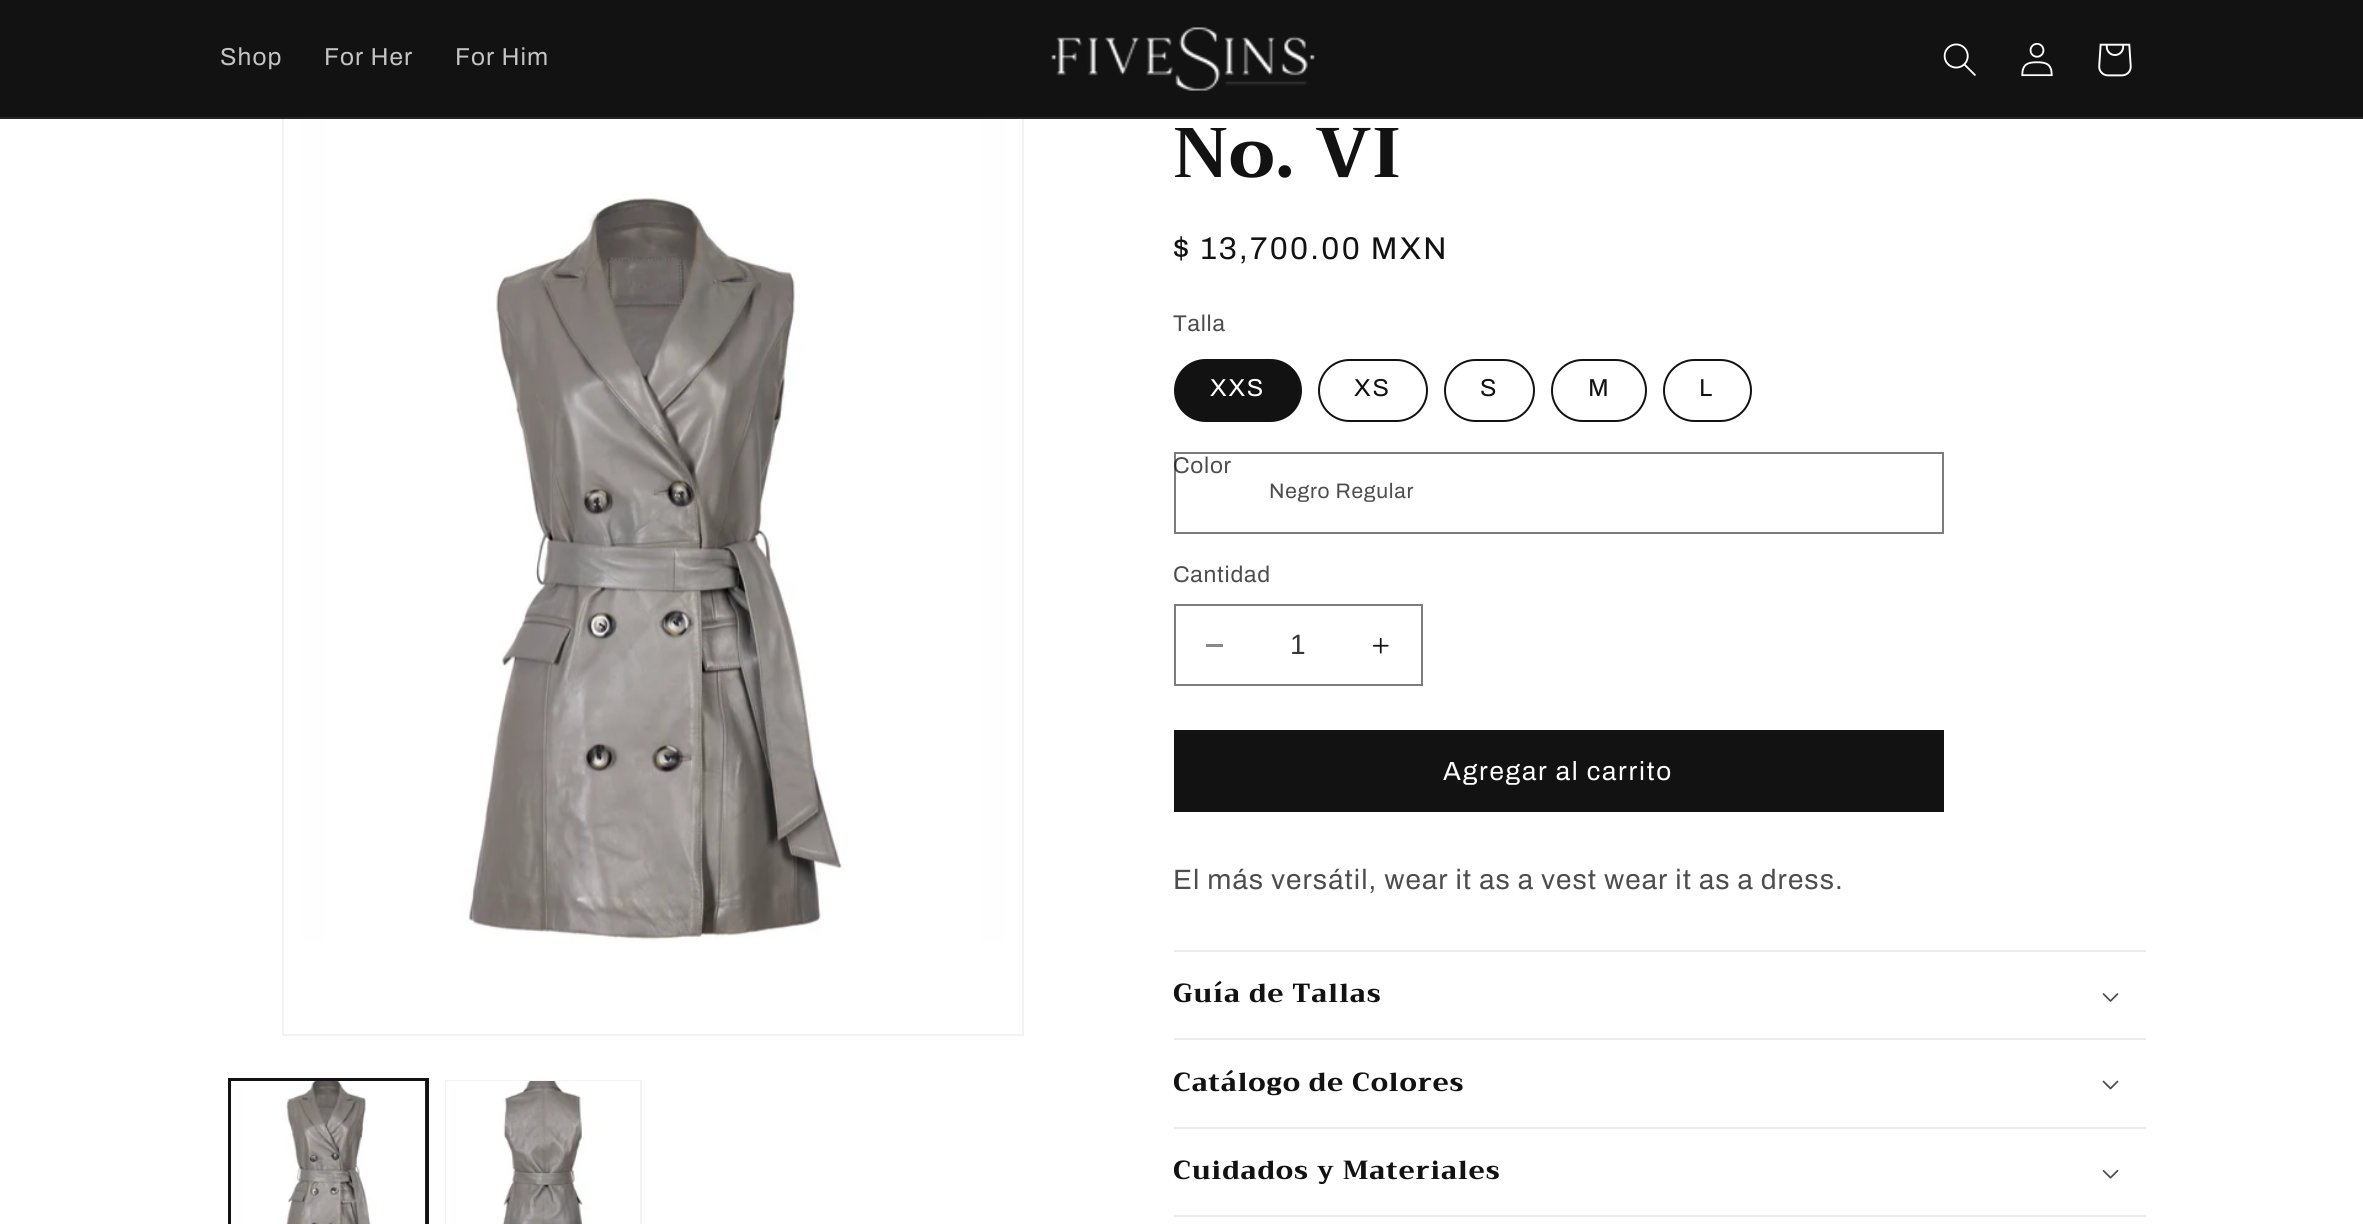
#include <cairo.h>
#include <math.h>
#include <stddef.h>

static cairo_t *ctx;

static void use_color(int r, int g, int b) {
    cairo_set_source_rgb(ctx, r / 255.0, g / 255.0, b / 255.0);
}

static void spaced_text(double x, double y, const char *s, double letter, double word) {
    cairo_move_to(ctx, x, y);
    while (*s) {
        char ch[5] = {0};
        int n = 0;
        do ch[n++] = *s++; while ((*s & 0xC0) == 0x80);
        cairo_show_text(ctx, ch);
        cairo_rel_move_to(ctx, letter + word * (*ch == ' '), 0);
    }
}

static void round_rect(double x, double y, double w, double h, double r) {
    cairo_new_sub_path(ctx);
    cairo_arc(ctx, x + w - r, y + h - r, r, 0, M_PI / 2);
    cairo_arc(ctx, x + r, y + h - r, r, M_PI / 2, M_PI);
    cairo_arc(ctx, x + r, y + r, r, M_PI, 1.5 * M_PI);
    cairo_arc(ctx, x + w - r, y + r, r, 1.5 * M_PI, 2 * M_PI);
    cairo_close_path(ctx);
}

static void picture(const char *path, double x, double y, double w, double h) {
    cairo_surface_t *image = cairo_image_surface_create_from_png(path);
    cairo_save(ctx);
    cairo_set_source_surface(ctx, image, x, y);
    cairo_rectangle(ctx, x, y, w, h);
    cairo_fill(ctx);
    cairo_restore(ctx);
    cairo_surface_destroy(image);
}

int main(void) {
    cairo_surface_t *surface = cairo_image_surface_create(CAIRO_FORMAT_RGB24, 2363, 1224);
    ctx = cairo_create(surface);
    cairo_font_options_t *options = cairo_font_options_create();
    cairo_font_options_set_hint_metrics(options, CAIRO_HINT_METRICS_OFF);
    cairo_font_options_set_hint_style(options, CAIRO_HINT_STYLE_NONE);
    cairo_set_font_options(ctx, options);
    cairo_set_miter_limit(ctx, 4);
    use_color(255, 255, 255);
    cairo_paint(ctx);
    cairo_rectangle(ctx, 283, 110, 740, 925);
    use_color(243, 243, 243);
    cairo_stroke(ctx);
    use_color(18, 18, 18);
    cairo_rectangle(ctx, 0, 0, 2363, 117);
    cairo_fill(ctx);
    use_color(37, 37, 37);
    cairo_rectangle(ctx, 0, 117, 2363, 2);
    cairo_fill(ctx);
    cairo_select_font_face(ctx, "Archivo", CAIRO_FONT_SLANT_NORMAL, CAIRO_FONT_WEIGHT_NORMAL);
    cairo_set_font_size(ctx, 24.5);
    use_color(196, 196, 196);
    spaced_text(220, 65, "Shop", 1.05, 0);
    spaced_text(324, 65, "For Her", 1.05, 0);
    spaced_text(455, 65, "For Him", 1.05, 0);
    picture("img1.png", 1051, 27, 264, 64);
    picture("img2.png", 1943, 43, 33, 33);
    picture("img3.png", 2021, 42, 32, 35);
    picture("img4.png", 2098, 43, 34, 34);
    picture("img5.png", 284, 119, 738, 823);
    cairo_rectangle(ctx, 229, 1079, 199, 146);
    use_color(18, 18, 18);
    cairo_stroke(ctx);
    cairo_rectangle(ctx, 230, 1081, 196, 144);
    cairo_stroke(ctx);
    picture("img6.png", 231, 1081, 195, 143);
    cairo_rectangle(ctx, 446, 1081, 195, 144);
    use_color(243, 243, 243);
    cairo_stroke(ctx);
    picture("img7.png", 446, 1081, 194, 143);
    cairo_select_font_face(ctx, "Trirong ExtraBold", CAIRO_FONT_SLANT_NORMAL, CAIRO_FONT_WEIGHT_NORMAL);
    cairo_set_font_size(ctx, 70);
    use_color(18, 18, 18);
    spaced_text(1173, 177, "No. VI", 1.05, 0);
    cairo_select_font_face(ctx, "Archivo", CAIRO_FONT_SLANT_NORMAL, CAIRO_FONT_WEIGHT_NORMAL);
    cairo_set_font_size(ctx, 31.5);
    spaced_text(1173, 259, "$ 13,700.00 MXN", 2.25, 0);
    cairo_set_font_size(ctx, 22.75);
    use_color(77, 77, 77);
    spaced_text(1173, 331, "Talla", 0.75, 0);
    use_color(18, 18, 18);
    round_rect(1175, 360, 126, 61, 30.5);
    cairo_fill_preserve(ctx);
    cairo_stroke(ctx);
    cairo_set_font_size(ctx, 24.5);
    use_color(255, 255, 255);
    spaced_text(1210, 396, "XXS", 1.75, 0);
    round_rect(1319, 360, 108, 61, 30.5);
    use_color(18, 18, 18);
    cairo_stroke(ctx);
    spaced_text(1354, 396, "XS", 1.75, 0);
    round_rect(1445, 360, 89, 61, 30.5);
    cairo_stroke(ctx);
    spaced_text(1480, 396, "S", 1.75, 0);
    round_rect(1552, 360, 94, 61, 30.5);
    cairo_stroke(ctx);
    spaced_text(1588, 396, "M", 1.75, 0);
    round_rect(1664, 360, 87, 61, 30.5);
    cairo_stroke(ctx);
    spaced_text(1699, 396, "L", 1.75, 0);
    cairo_set_font_size(ctx, 22.75);
    use_color(77, 77, 77);
    spaced_text(1173, 473, "Color", 0.75, 0);
    cairo_rectangle(ctx, 1175, 453, 768, 80);
    cairo_set_source_rgba(ctx, 0.071, 0.071, 0.071, 0.55);
    cairo_stroke(ctx);
    cairo_set_font_size(ctx, 21);
    use_color(77, 77, 77);
    spaced_text(1269, 498, "Negro Regular", 0.75, 0);
    cairo_set_font_size(ctx, 22.75);
    spaced_text(1173, 582, "Cantidad", 0.75, 0);
    use_color(137, 137, 137);
    cairo_rectangle(ctx, 1206, 644, 17, 3);
    cairo_fill(ctx);
    picture("img8.png", 1372, 637, 17, 17);
    cairo_rectangle(ctx, 1175, 605, 247, 80);
    use_color(125, 125, 125);
    cairo_stroke(ctx);
    cairo_select_font_face(ctx, "Liberation Sans", CAIRO_FONT_SLANT_NORMAL, CAIRO_FONT_WEIGHT_NORMAL);
    cairo_set_font_size(ctx, 28);
    use_color(54, 54, 54);
    cairo_move_to(ctx, 1290, 654);
    cairo_show_text(ctx, "1");
    use_color(18, 18, 18);
    cairo_rectangle(ctx, 1174, 730, 770, 82);
    cairo_fill(ctx);
    cairo_select_font_face(ctx, "Archivo", CAIRO_FONT_SLANT_NORMAL, CAIRO_FONT_WEIGHT_NORMAL);
    cairo_set_font_size(ctx, 26.25);
    use_color(255, 255, 255);
    spaced_text(1443, 780, "Agregar al carrito", 1.75, 0);
    cairo_set_font_size(ctx, 28);
    use_color(77, 77, 77);
    spaced_text(1173, 889, "El más versátil, wear it as a vest wear it as a dress.", 1.05, 0);
    use_color(236, 236, 236);
    cairo_rectangle(ctx, 1174, 950, 972, 2);
    cairo_fill(ctx);
    cairo_rectangle(ctx, 1174, 1038, 972, 2);
    cairo_fill(ctx);
    cairo_select_font_face(ctx, "Trirong ExtraBold", CAIRO_FONT_SLANT_NORMAL, CAIRO_FONT_WEIGHT_NORMAL);
    cairo_set_font_size(ctx, 26.25);
    use_color(18, 18, 18);
    spaced_text(1173, 1002, "Guía de Tallas", 1.05, 0);
    picture("img9.png", 2102, 993, 17, 9);
    use_color(236, 236, 236);
    cairo_rectangle(ctx, 1174, 1127, 972, 2);
    cairo_fill(ctx);
    use_color(18, 18, 18);
    spaced_text(1173, 1091, "Catálogo de Colores", 1.05, 0);
    picture("img10.png", 2102, 1080, 17, 10);
    use_color(236, 236, 236);
    cairo_rectangle(ctx, 1174, 1215, 972, 2);
    cairo_fill(ctx);
    use_color(18, 18, 18);
    spaced_text(1173, 1179, "Cuidados y Materiales", 1.05, 0);
    picture("img11.png", 2102, 1169, 17, 10);
    cairo_surface_write_to_png(surface, "result.png");
    cairo_font_options_destroy(options);
    cairo_destroy(ctx);
    cairo_surface_destroy(surface);
    return 0;
}
